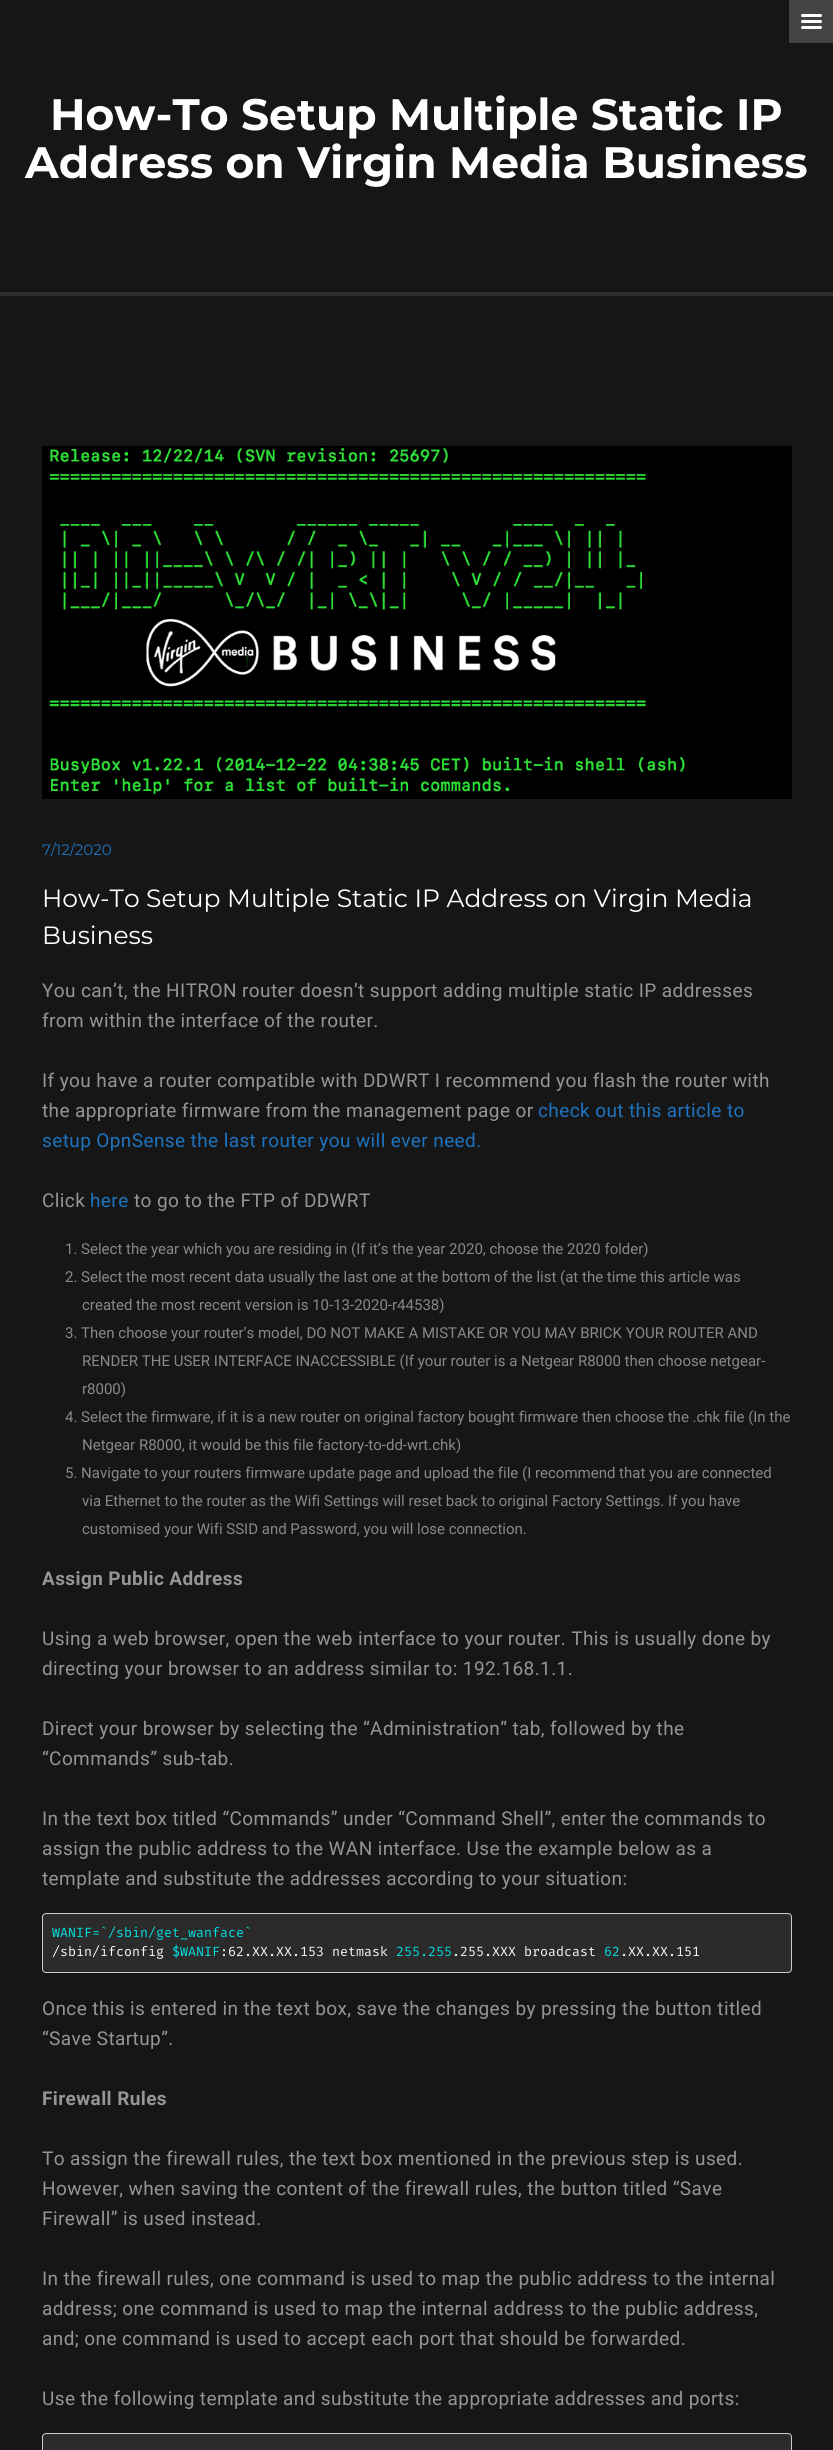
#include <cairo.h>
#include <math.h>
#include <stddef.h>

static cairo_t *ctx;

static void use_color(int r, int g, int b) {
    cairo_set_source_rgb(ctx, r / 255.0, g / 255.0, b / 255.0);
}

static void spaced_text(double x, double y, const char *s, double letter, double word) {
    cairo_move_to(ctx, x, y);
    while (*s) {
        char ch[5] = {0};
        int n = 0;
        do ch[n++] = *s++; while ((*s & 0xC0) == 0x80);
        cairo_show_text(ctx, ch);
        cairo_rel_move_to(ctx, letter + word * (*ch == ' '), 0);
    }
}

static void round_rect(double x, double y, double w, double h, double r) {
    cairo_new_sub_path(ctx);
    cairo_arc(ctx, x + w - r, y + h - r, r, 0, M_PI / 2);
    cairo_arc(ctx, x + r, y + h - r, r, M_PI / 2, M_PI);
    cairo_arc(ctx, x + r, y + r, r, M_PI, 1.5 * M_PI);
    cairo_arc(ctx, x + w - r, y + r, r, 1.5 * M_PI, 2 * M_PI);
    cairo_close_path(ctx);
}

static void picture(const char *path, double x, double y, double w, double h) {
    cairo_surface_t *image = cairo_image_surface_create_from_png(path);
    cairo_save(ctx);
    cairo_set_source_surface(ctx, image, x, y);
    cairo_rectangle(ctx, x, y, w, h);
    cairo_fill(ctx);
    cairo_restore(ctx);
    cairo_surface_destroy(image);
}

int main(void) {
    cairo_surface_t *surface = cairo_image_surface_create(CAIRO_FORMAT_RGB24, 833, 2450);
    ctx = cairo_create(surface);
    cairo_font_options_t *options = cairo_font_options_create();
    cairo_font_options_set_hint_metrics(options, CAIRO_HINT_METRICS_OFF);
    cairo_font_options_set_hint_style(options, CAIRO_HINT_STYLE_NONE);
    cairo_set_font_options(ctx, options);
    cairo_set_miter_limit(ctx, 4);
    use_color(22, 22, 22);
    cairo_paint(ctx);
    use_color(68, 68, 68);
    cairo_rectangle(ctx, 789, 0, 44, 43);
    cairo_fill(ctx);
    use_color(255, 255, 255);
    round_rect(801, 14, 21, 3, 1.5);
    cairo_fill(ctx);
    round_rect(801, 20, 21, 3, 1.5);
    cairo_fill(ctx);
    round_rect(801, 26, 21, 3, 1.5);
    cairo_fill(ctx);
    use_color(47, 46, 46);
    cairo_rectangle(ctx, 0, 292, 833, 4);
    cairo_fill(ctx);
    cairo_select_font_face(ctx, "Montserrat", CAIRO_FONT_SLANT_NORMAL, CAIRO_FONT_WEIGHT_BOLD);
    cairo_set_font_size(ctx, 44);
    use_color(255, 255, 255);
    cairo_move_to(ctx, 50, 130);
    cairo_show_text(ctx, "How-To Setup Multiple Static IP");
    cairo_move_to(ctx, 25, 178);
    cairo_show_text(ctx, "Address on Virgin Media Business");
    picture("img1.png", 42, 446, 750, 353);
    cairo_select_font_face(ctx, "Montserrat", CAIRO_FONT_SLANT_NORMAL, CAIRO_FONT_WEIGHT_NORMAL);
    cairo_set_font_size(ctx, 15);
    use_color(30, 115, 190);
    cairo_move_to(ctx, 42, 855);
    cairo_show_text(ctx, "7/12/2020");
    cairo_set_font_size(ctx, 25);
    use_color(255, 255, 255);
    cairo_move_to(ctx, 42, 907);
    cairo_show_text(ctx, "How-To Setup Multiple Static IP Address on Virgin Media");
    cairo_move_to(ctx, 42, 944);
    cairo_show_text(ctx, "Business");
    cairo_select_font_face(ctx, "Roboto", CAIRO_FONT_SLANT_NORMAL, CAIRO_FONT_WEIGHT_NORMAL);
    cairo_set_font_size(ctx, 19);
    use_color(149, 149, 149);
    spaced_text(42, 997, "You can’t, the HITRON router doesn’t support adding multiple static IP addresses", 0.4, 0);
    spaced_text(42, 1027, "from within the interface of the router.", 0.4, 0);
    spaced_text(42, 1087, "If you have a router compatible with DDWRT I recommend you flash the router with", 0.4, 0);
    spaced_text(42, 1117, "the appropriate firmware from the management page or", 0.4, 0);
    use_color(30, 115, 190);
    spaced_text(538, 1117, "check out this article to", 0.4, 0);
    spaced_text(42, 1147, "setup OpnSense the last router you will ever need.", 0.4, 0);
    use_color(149, 149, 149);
    spaced_text(42, 1207, "Click", 0.4, 0);
    use_color(30, 115, 190);
    spaced_text(90, 1207, "here", 0.4, 0);
    use_color(149, 149, 149);
    spaced_text(134, 1207, "to go to the FTP of DDWRT", 0.4, 0);
    cairo_set_font_size(ctx, 15);
    use_color(136, 136, 136);
    cairo_move_to(ctx, 65, 1254);
    cairo_show_text(ctx, "1. Select the year which you are residing in (If it’s the year 2020, choose the 2020 folder)");
    cairo_move_to(ctx, 65, 1282);
    cairo_show_text(ctx, "2. Select the most recent data usually the last one at the bottom of the list (at the time this article was");
    cairo_move_to(ctx, 82, 1310);
    cairo_show_text(ctx, "created the most recent version is 10-13-2020-r44538)");
    cairo_move_to(ctx, 65, 1338);
    cairo_show_text(ctx, "3. Then choose your router’s model, DO NOT MAKE A MISTAKE OR YOU MAY BRICK YOUR ROUTER AND");
    cairo_move_to(ctx, 82, 1366);
    cairo_show_text(ctx, "RENDER THE USER INTERFACE INACCESSIBLE (If your router is a Netgear R8000 then choose netgear-");
    cairo_move_to(ctx, 82, 1394);
    cairo_show_text(ctx, "r8000)");
    cairo_move_to(ctx, 65, 1422);
    cairo_show_text(ctx, "4. Select the firmware, if it is a new router on original factory bought firmware then choose the .chk file (In the");
    cairo_move_to(ctx, 82, 1450);
    cairo_show_text(ctx, "Netgear R8000, it would be this file factory-to-dd-wrt.chk)");
    cairo_move_to(ctx, 65, 1478);
    cairo_show_text(ctx, "5. Navigate to your routers firmware update page and upload the file (I recommend that you are connected");
    cairo_move_to(ctx, 82, 1506);
    cairo_show_text(ctx, "via Ethernet to the router as the Wifi Settings will reset back to original Factory Settings. If you have");
    cairo_move_to(ctx, 82, 1534);
    cairo_show_text(ctx, "customised your Wifi SSID and Password, you will lose connection.");
    cairo_select_font_face(ctx, "Roboto", CAIRO_FONT_SLANT_NORMAL, CAIRO_FONT_WEIGHT_BOLD);
    cairo_set_font_size(ctx, 19);
    use_color(149, 149, 149);
    spaced_text(42, 1585, "Assign Public Address", 0.4, 0);
    cairo_select_font_face(ctx, "Roboto", CAIRO_FONT_SLANT_NORMAL, CAIRO_FONT_WEIGHT_NORMAL);
    spaced_text(42, 1645, "Using a web browser, open the web interface to your router. This is usually done by", 0.4, 0);
    spaced_text(42, 1675, "directing your browser to an address similar to: 192.168.1.1.", 0.4, 0);
    spaced_text(42, 1735, "Direct your browser by selecting the “Administration” tab, followed by the", 0.4, 0);
    spaced_text(42, 1765, "“Commands” sub-tab.", 0.4, 0);
    spaced_text(42, 1825, "In the text box titled “Commands” under “Command Shell”, enter the commands to", 0.4, 0);
    spaced_text(42, 1855, "assign the public address to the WAN interface. Use the example below as a", 0.4, 0);
    spaced_text(42, 1885, "template and substitute the addresses according to your situation:", 0.4, 0);
    use_color(43, 43, 43);
    round_rect(42.5, 1913.5, 749, 59, 3.5);
    cairo_fill_preserve(ctx);
    use_color(204, 204, 204);
    cairo_set_line_width(ctx, 1);
    cairo_stroke(ctx);
    cairo_select_font_face(ctx, "Fira Code", CAIRO_FONT_SLANT_NORMAL, CAIRO_FONT_WEIGHT_NORMAL);
    cairo_set_font_size(ctx, 13);
    use_color(0, 224, 224);
    cairo_move_to(ctx, 52, 1937);
    cairo_show_text(ctx, "WANIF=`/sbin/get_wanface`");
    use_color(248, 248, 242);
    cairo_move_to(ctx, 52, 1956);
    cairo_show_text(ctx, "/sbin/ifconfig");
    use_color(0, 224, 224);
    cairo_move_to(ctx, 172, 1956);
    cairo_show_text(ctx, "$WANIF");
    use_color(248, 248, 242);
    cairo_move_to(ctx, 220, 1956);
    cairo_show_text(ctx, ":62.XX.XX.153 netmask");
    use_color(0, 224, 224);
    cairo_move_to(ctx, 396, 1956);
    cairo_show_text(ctx, "255.255");
    use_color(248, 248, 242);
    cairo_move_to(ctx, 452, 1956);
    cairo_show_text(ctx, ".255.XXX broadcast");
    use_color(0, 224, 224);
    cairo_move_to(ctx, 604, 1956);
    cairo_show_text(ctx, "62");
    use_color(248, 248, 242);
    cairo_move_to(ctx, 620, 1956);
    cairo_show_text(ctx, ".XX.XX.151");
    cairo_select_font_face(ctx, "Roboto", CAIRO_FONT_SLANT_NORMAL, CAIRO_FONT_WEIGHT_NORMAL);
    cairo_set_font_size(ctx, 19);
    use_color(149, 149, 149);
    spaced_text(42, 2015, "Once this is entered in the text box, save the changes by pressing the button titled", 0.4, 0);
    spaced_text(42, 2045, "“Save Startup”.", 0.4, 0);
    cairo_select_font_face(ctx, "Roboto", CAIRO_FONT_SLANT_NORMAL, CAIRO_FONT_WEIGHT_BOLD);
    spaced_text(42, 2105, "Firewall Rules", 0.4, 0);
    cairo_select_font_face(ctx, "Roboto", CAIRO_FONT_SLANT_NORMAL, CAIRO_FONT_WEIGHT_NORMAL);
    spaced_text(42, 2165, "To assign the firewall rules, the text box mentioned in the previous step is used.", 0.4, 0);
    spaced_text(42, 2195, "However, when saving the content of the firewall rules, the button titled “Save", 0.4, 0);
    spaced_text(42, 2225, "Firewall” is used instead.", 0.4, 0);
    spaced_text(42, 2285, "In the firewall rules, one command is used to map the public address to the internal", 0.4, 0);
    spaced_text(42, 2315, "address; one command is used to map the internal address to the public address,", 0.4, 0);
    spaced_text(42, 2345, "and; one command is used to accept each port that should be forwarded.", 0.4, 0);
    spaced_text(42, 2405, "Use the following template and substitute the appropriate addresses and ports:", 0.4, 0);
    use_color(43, 43, 43);
    round_rect(42.5, 2433.5, 749, 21, 3.5);
    cairo_fill_preserve(ctx);
    use_color(204, 204, 204);
    cairo_stroke(ctx);
    cairo_surface_write_to_png(surface, "result.png");
    cairo_font_options_destroy(options);
    cairo_destroy(ctx);
    cairo_surface_destroy(surface);
    return 0;
}
